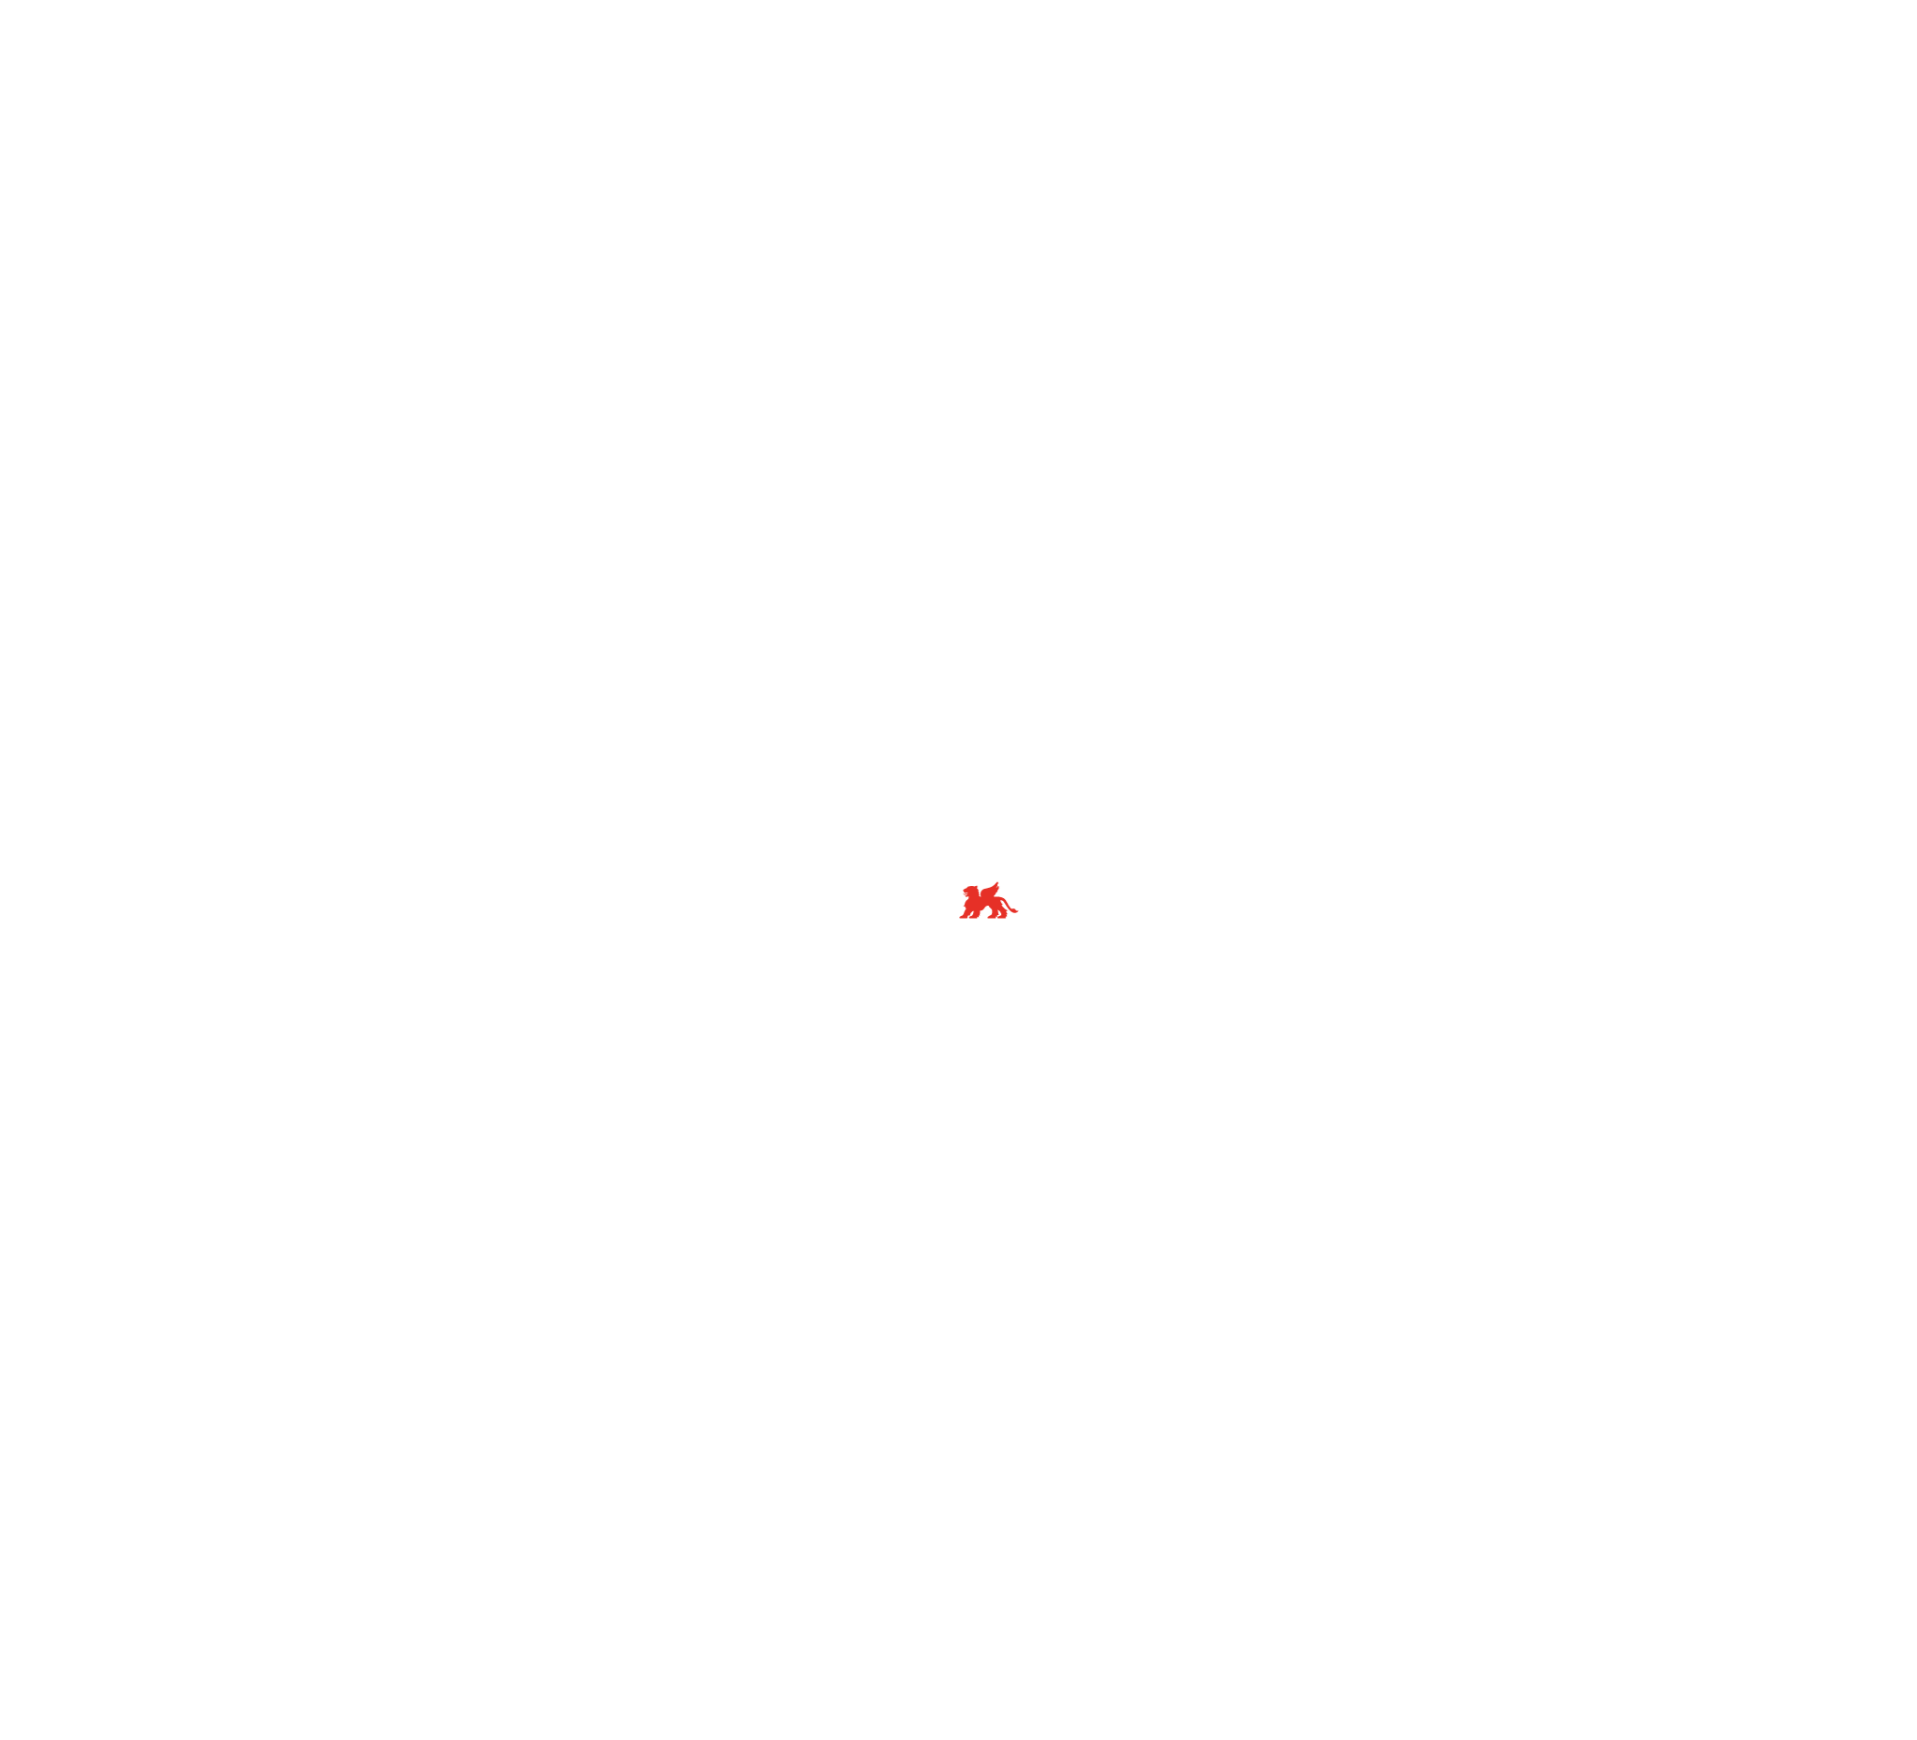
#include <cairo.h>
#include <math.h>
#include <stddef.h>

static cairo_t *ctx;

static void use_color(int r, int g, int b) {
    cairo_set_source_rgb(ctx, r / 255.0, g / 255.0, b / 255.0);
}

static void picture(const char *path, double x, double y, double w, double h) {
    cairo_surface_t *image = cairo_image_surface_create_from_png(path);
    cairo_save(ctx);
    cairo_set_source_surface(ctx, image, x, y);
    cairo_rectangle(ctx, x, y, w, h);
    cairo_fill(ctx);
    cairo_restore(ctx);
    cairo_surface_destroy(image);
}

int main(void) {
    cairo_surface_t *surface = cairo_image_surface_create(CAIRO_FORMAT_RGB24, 1917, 1740);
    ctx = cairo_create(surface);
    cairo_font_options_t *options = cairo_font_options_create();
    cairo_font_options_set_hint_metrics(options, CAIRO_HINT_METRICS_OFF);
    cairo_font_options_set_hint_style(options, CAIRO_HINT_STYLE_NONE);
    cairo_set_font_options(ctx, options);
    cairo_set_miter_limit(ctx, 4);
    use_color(255, 255, 255);
    cairo_paint(ctx);
    picture("img1.png", 959, 881, 60, 38);
    cairo_surface_write_to_png(surface, "result.png");
    cairo_font_options_destroy(options);
    cairo_destroy(ctx);
    cairo_surface_destroy(surface);
    return 0;
}
